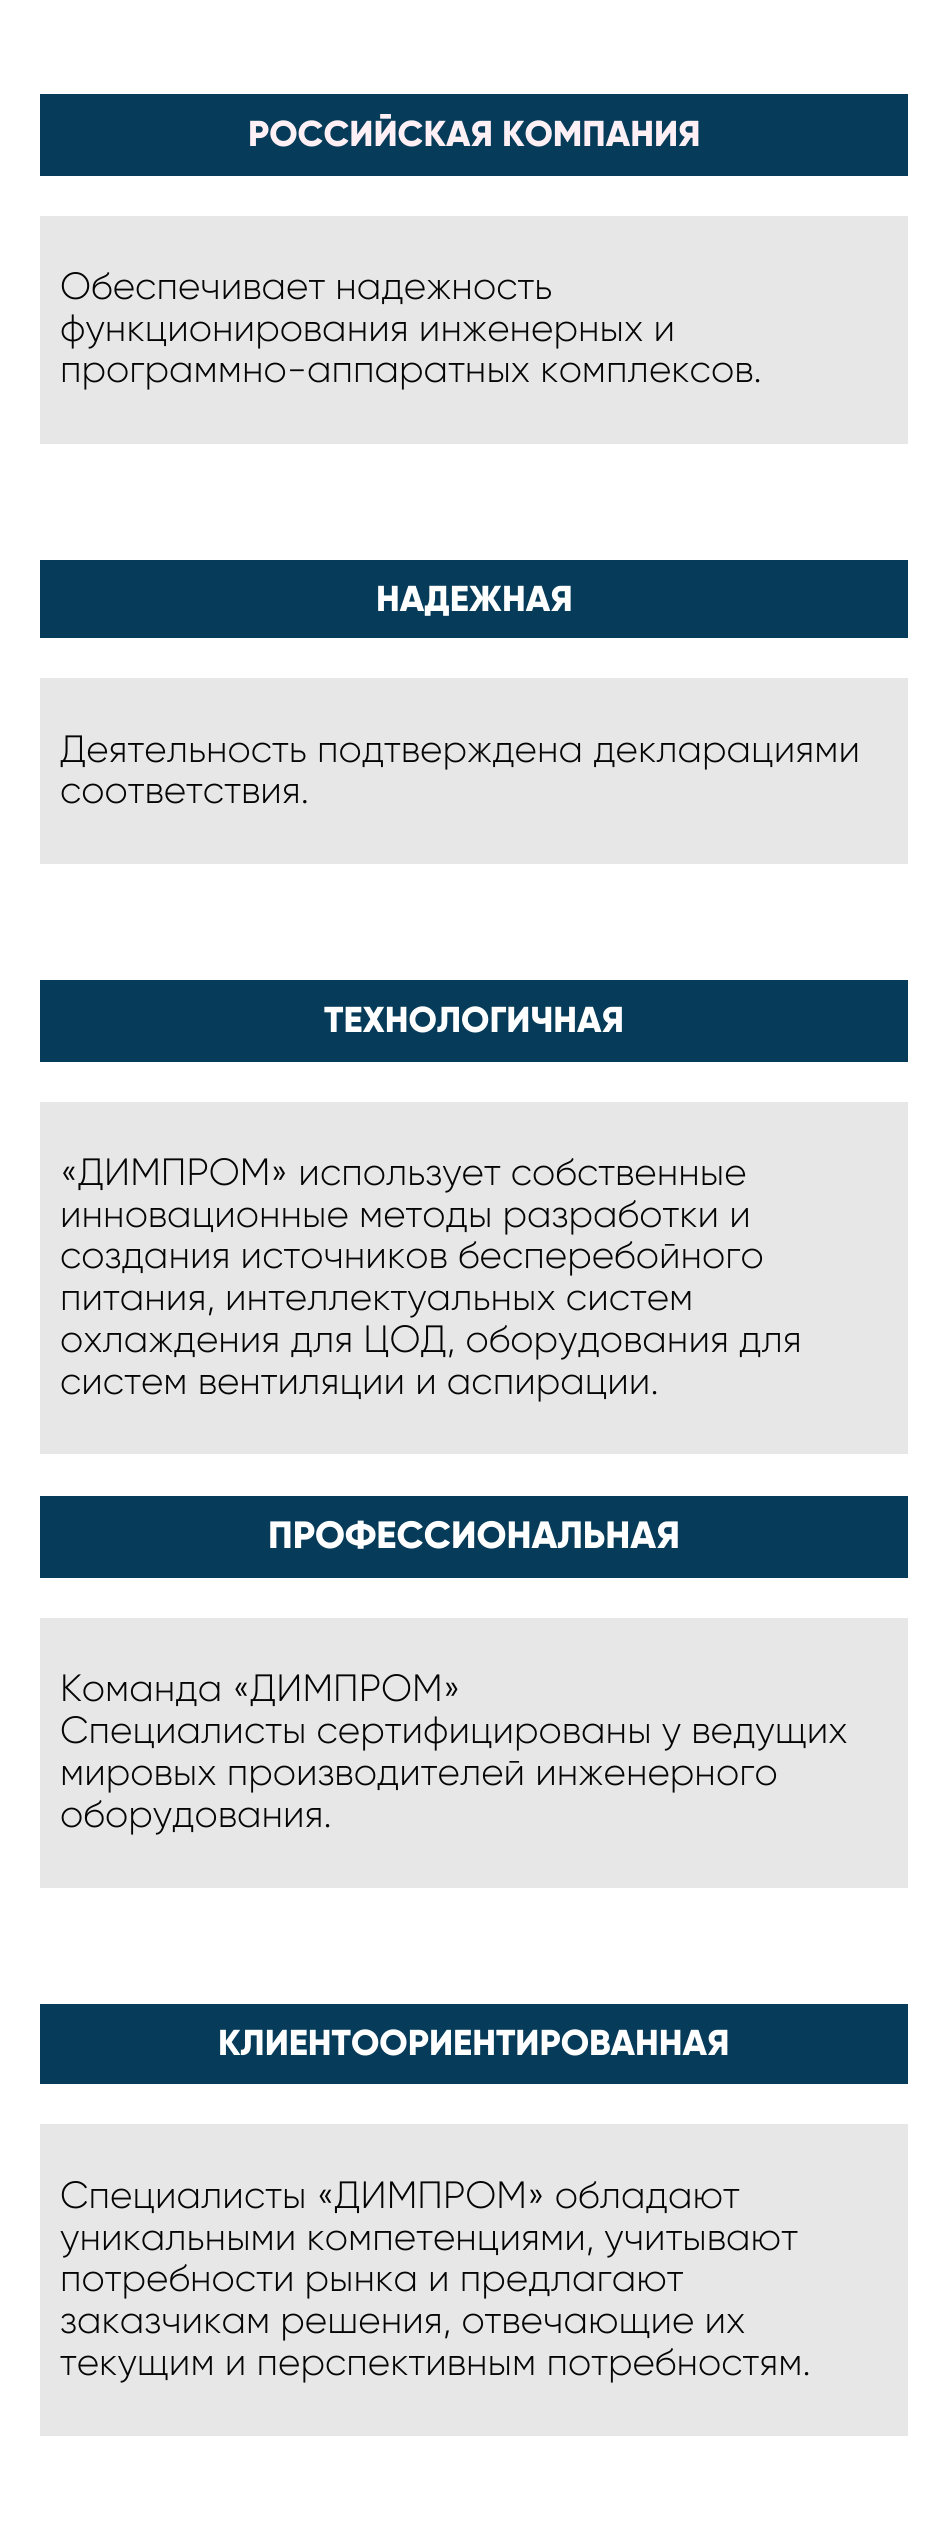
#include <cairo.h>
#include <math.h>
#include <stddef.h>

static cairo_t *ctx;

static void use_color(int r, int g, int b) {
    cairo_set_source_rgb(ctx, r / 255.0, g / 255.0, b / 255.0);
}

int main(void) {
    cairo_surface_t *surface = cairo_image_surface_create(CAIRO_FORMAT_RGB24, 948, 2535);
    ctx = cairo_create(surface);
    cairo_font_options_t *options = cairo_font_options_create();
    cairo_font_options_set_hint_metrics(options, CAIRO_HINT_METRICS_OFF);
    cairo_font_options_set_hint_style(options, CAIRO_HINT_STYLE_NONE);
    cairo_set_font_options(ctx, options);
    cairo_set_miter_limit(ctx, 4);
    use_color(255, 255, 255);
    cairo_paint(ctx);
    use_color(6, 60, 89);
    cairo_rectangle(ctx, 40, 94, 868, 82);
    cairo_fill(ctx);
    cairo_select_font_face(ctx, "Gilroy ExtraBold", CAIRO_FONT_SLANT_NORMAL, CAIRO_FONT_WEIGHT_NORMAL);
    cairo_set_font_size(ctx, 36);
    use_color(255, 240, 245);
    cairo_move_to(ctx, 248, 146);
    cairo_show_text(ctx, "РОССИЙСКАЯ КОМПАНИЯ");
    use_color(231, 231, 231);
    cairo_rectangle(ctx, 40, 216, 868, 228);
    cairo_fill(ctx);
    cairo_select_font_face(ctx, "Gilroy Light", CAIRO_FONT_SLANT_NORMAL, CAIRO_FONT_WEIGHT_NORMAL);
    cairo_set_font_size(ctx, 38);
    use_color(5, 5, 5);
    cairo_move_to(ctx, 60, 299);
    cairo_show_text(ctx, "Обеспечивает надежность");
    cairo_move_to(ctx, 60, 341);
    cairo_show_text(ctx, "функционирования инженерных и");
    cairo_move_to(ctx, 60, 382);
    cairo_show_text(ctx, "программно-аппаратных комплексов.");
    use_color(6, 60, 89);
    cairo_rectangle(ctx, 40, 560, 868, 78);
    cairo_fill(ctx);
    cairo_select_font_face(ctx, "Gilroy ExtraBold", CAIRO_FONT_SLANT_NORMAL, CAIRO_FONT_WEIGHT_NORMAL);
    cairo_set_font_size(ctx, 36);
    use_color(255, 255, 255);
    cairo_move_to(ctx, 376, 611);
    cairo_show_text(ctx, "НАДЕЖНАЯ");
    use_color(231, 231, 231);
    cairo_rectangle(ctx, 40, 678, 868, 186);
    cairo_fill(ctx);
    cairo_select_font_face(ctx, "Gilroy Light", CAIRO_FONT_SLANT_NORMAL, CAIRO_FONT_WEIGHT_NORMAL);
    cairo_set_font_size(ctx, 38);
    use_color(5, 5, 5);
    cairo_move_to(ctx, 60, 762);
    cairo_show_text(ctx, "Деятельность подтверждена декларациями");
    cairo_move_to(ctx, 60, 803);
    cairo_show_text(ctx, "соответствия.");
    use_color(6, 60, 89);
    cairo_rectangle(ctx, 40, 980, 868, 82);
    cairo_fill(ctx);
    cairo_select_font_face(ctx, "Gilroy ExtraBold", CAIRO_FONT_SLANT_NORMAL, CAIRO_FONT_WEIGHT_NORMAL);
    cairo_set_font_size(ctx, 36);
    use_color(255, 255, 255);
    cairo_move_to(ctx, 324, 1032);
    cairo_show_text(ctx, "ТЕХНОЛОГИЧНАЯ");
    use_color(231, 231, 231);
    cairo_rectangle(ctx, 40, 1102, 868, 352);
    cairo_fill(ctx);
    cairo_select_font_face(ctx, "Gilroy Light", CAIRO_FONT_SLANT_NORMAL, CAIRO_FONT_WEIGHT_NORMAL);
    cairo_set_font_size(ctx, 38);
    use_color(5, 5, 5);
    cairo_move_to(ctx, 60, 1185);
    cairo_show_text(ctx, "«ДИМПРОМ» использует собственные");
    cairo_move_to(ctx, 60, 1227);
    cairo_show_text(ctx, "инновационные методы разработки и");
    cairo_move_to(ctx, 60, 1268);
    cairo_show_text(ctx, "создания источников бесперебойного");
    cairo_move_to(ctx, 60, 1310);
    cairo_show_text(ctx, "питания, интеллектуальных систем");
    cairo_move_to(ctx, 60, 1352);
    cairo_show_text(ctx, "охлаждения для ЦОД, оборудования для");
    cairo_move_to(ctx, 60, 1394);
    cairo_show_text(ctx, "систем вентиляции и аспирации.");
    use_color(6, 60, 89);
    cairo_rectangle(ctx, 40, 1496, 868, 82);
    cairo_fill(ctx);
    cairo_select_font_face(ctx, "Gilroy ExtraBold", CAIRO_FONT_SLANT_NORMAL, CAIRO_FONT_WEIGHT_NORMAL);
    use_color(255, 255, 255);
    cairo_move_to(ctx, 268, 1548);
    cairo_show_text(ctx, "ПРОФЕССИОНАЛЬНАЯ");
    use_color(231, 231, 231);
    cairo_rectangle(ctx, 40, 1618, 868, 270);
    cairo_fill(ctx);
    cairo_select_font_face(ctx, "Gilroy Light", CAIRO_FONT_SLANT_NORMAL, CAIRO_FONT_WEIGHT_NORMAL);
    use_color(5, 5, 5);
    cairo_move_to(ctx, 60, 1701);
    cairo_show_text(ctx, "Команда «ДИМПРОМ»");
    cairo_move_to(ctx, 60, 1743);
    cairo_show_text(ctx, "Специалисты сертифицированы у ведущих");
    cairo_move_to(ctx, 60, 1785);
    cairo_show_text(ctx, "мировых производителей инженерного");
    cairo_move_to(ctx, 60, 1827);
    cairo_show_text(ctx, "оборудования.");
    use_color(6, 60, 89);
    cairo_rectangle(ctx, 40, 2004, 868, 80);
    cairo_fill(ctx);
    cairo_select_font_face(ctx, "Gilroy ExtraBold", CAIRO_FONT_SLANT_NORMAL, CAIRO_FONT_WEIGHT_NORMAL);
    cairo_set_font_size(ctx, 36);
    use_color(255, 255, 255);
    cairo_move_to(ctx, 218, 2055);
    cairo_show_text(ctx, "КЛИЕНТООРИЕНТИРОВАННАЯ");
    use_color(231, 231, 231);
    cairo_rectangle(ctx, 40, 2124, 868, 312);
    cairo_fill(ctx);
    cairo_select_font_face(ctx, "Gilroy Light", CAIRO_FONT_SLANT_NORMAL, CAIRO_FONT_WEIGHT_NORMAL);
    cairo_set_font_size(ctx, 38);
    use_color(5, 5, 5);
    cairo_move_to(ctx, 60, 2208);
    cairo_show_text(ctx, "Специалисты «ДИМПРОМ» обладают");
    cairo_move_to(ctx, 60, 2250);
    cairo_show_text(ctx, "уникальными компетенциями, учитывают");
    cairo_move_to(ctx, 60, 2291);
    cairo_show_text(ctx, "потребности рынка и предлагают");
    cairo_move_to(ctx, 60, 2333);
    cairo_show_text(ctx, "заказчикам решения, отвечающие их");
    cairo_move_to(ctx, 60, 2375);
    cairo_show_text(ctx, "текущим и перспективным потребностям.");
    cairo_surface_write_to_png(surface, "result.png");
    cairo_font_options_destroy(options);
    cairo_destroy(ctx);
    cairo_surface_destroy(surface);
    return 0;
}
